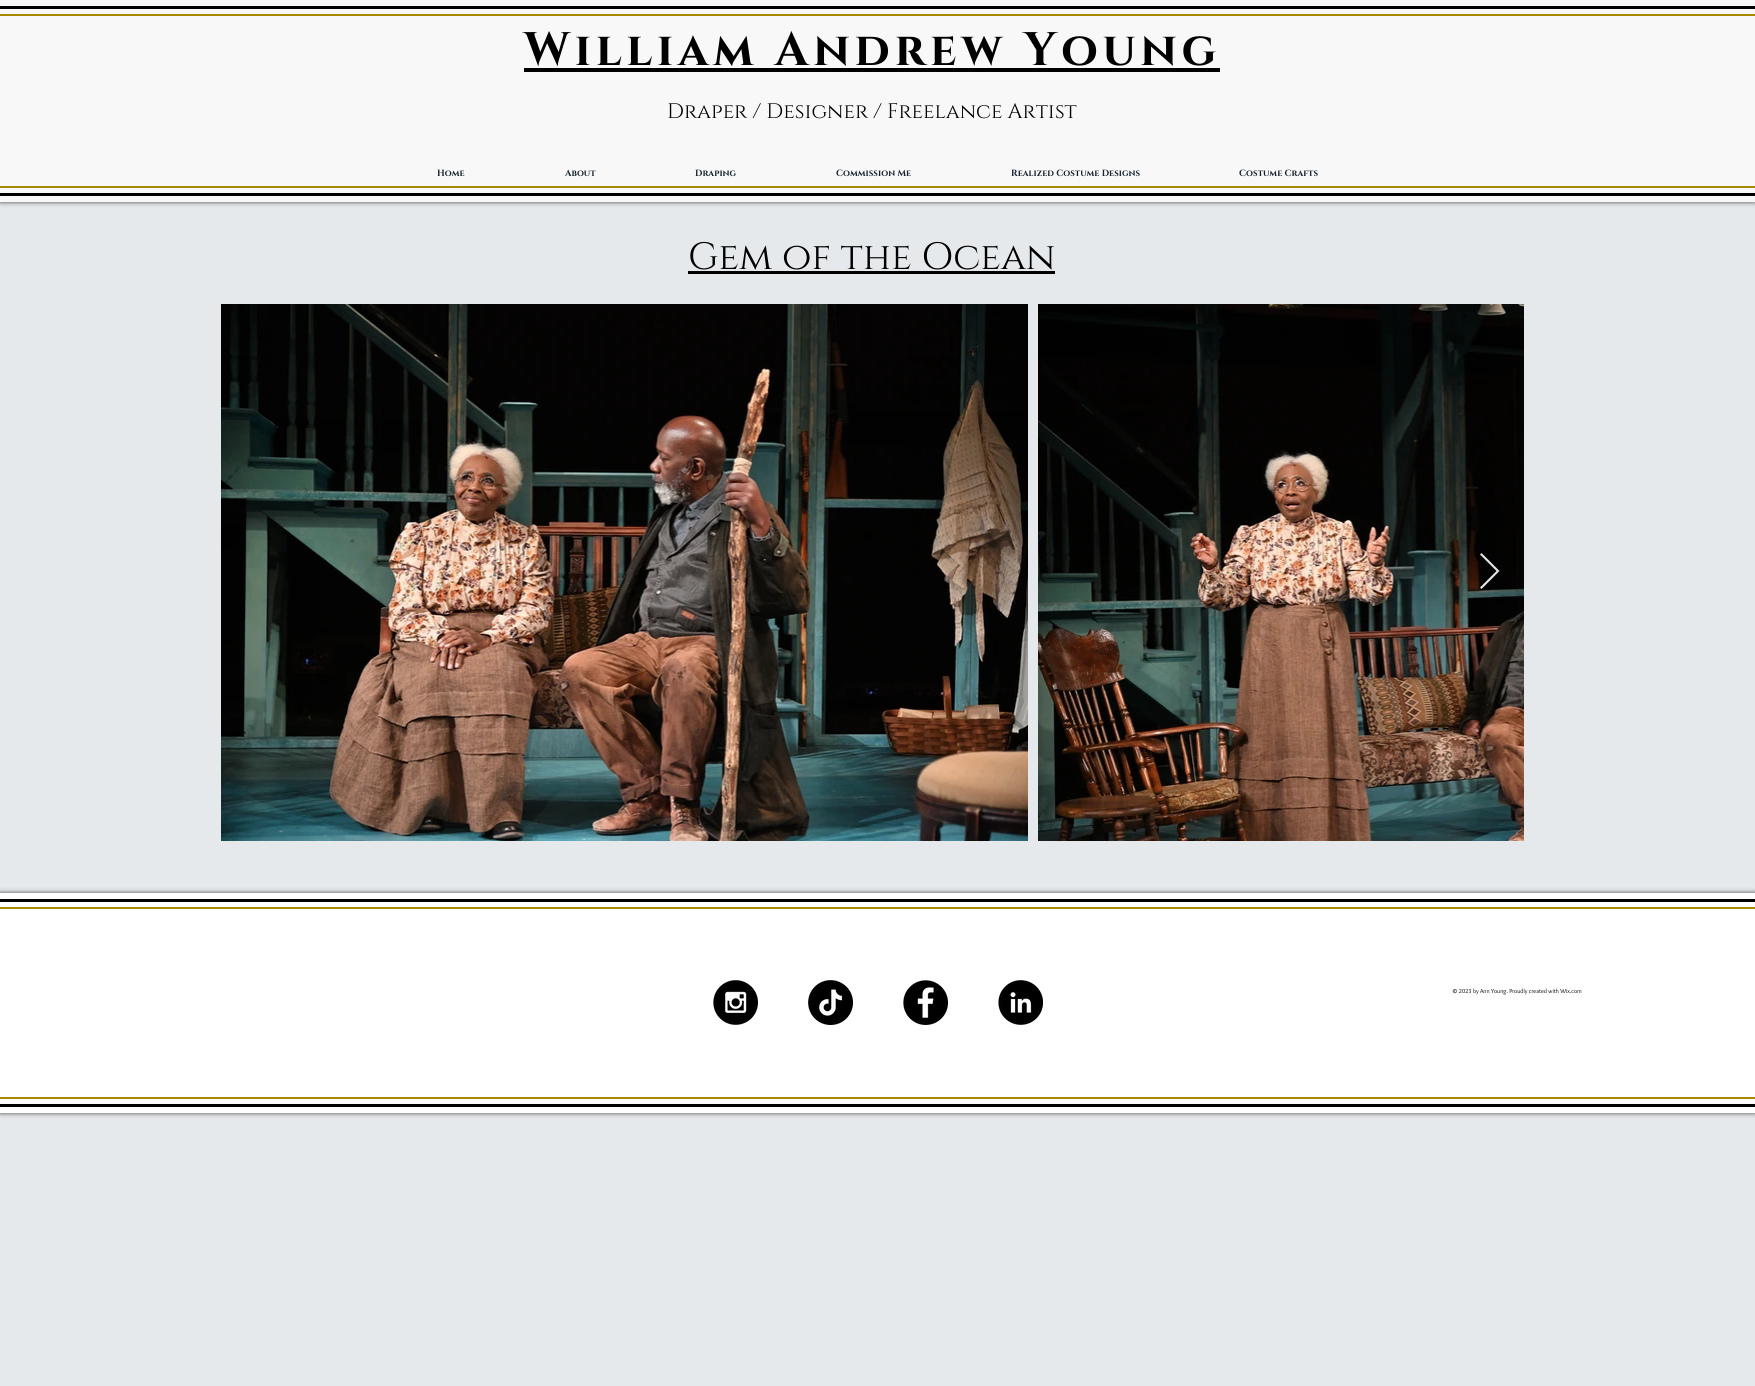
#include <cairo.h>
#include <math.h>
#include <stddef.h>

static cairo_t *ctx;

static void use_color(int r, int g, int b) {
    cairo_set_source_rgb(ctx, r / 255.0, g / 255.0, b / 255.0);
}

static void spaced_text(double x, double y, const char *s, double letter, double word) {
    cairo_move_to(ctx, x, y);
    while (*s) {
        char ch[5] = {0};
        int n = 0;
        do ch[n++] = *s++; while ((*s & 0xC0) == 0x80);
        cairo_show_text(ctx, ch);
        cairo_rel_move_to(ctx, letter + word * (*ch == ' '), 0);
    }
}

static void round_rect(double x, double y, double w, double h, double r) {
    cairo_new_sub_path(ctx);
    cairo_arc(ctx, x + w - r, y + h - r, r, 0, M_PI / 2);
    cairo_arc(ctx, x + r, y + h - r, r, M_PI / 2, M_PI);
    cairo_arc(ctx, x + r, y + r, r, M_PI, 1.5 * M_PI);
    cairo_arc(ctx, x + w - r, y + r, r, 1.5 * M_PI, 2 * M_PI);
    cairo_close_path(ctx);
}

static void shadow(double x, double y, double w, double h, double r, double blur, double alpha) {
    cairo_push_group_with_content(ctx, CAIRO_CONTENT_ALPHA);
    cairo_set_operator(ctx, CAIRO_OPERATOR_SOURCE);
    for (int i = 15; i >= -15 && fmin(w, h) + blur * i / 3 > 0; i -= 2) {
        double e = blur * i / 6;
        cairo_set_source_rgba(ctx, 0, 0, 0, alpha * erfc((i - 1) / 8.5) / 2);
        round_rect(x - e, y - e, w + 2 * e, h + 2 * e, fmax(0, fmin(r + e + blur * .6, fmin(w, h) / 2 + e)));
        cairo_fill(ctx);
    }
    cairo_pattern_t *soft = cairo_pop_group(ctx);
    cairo_mask(ctx, soft);
    cairo_pattern_destroy(soft);
}

static void picture(const char *path, double x, double y, double w, double h) {
    cairo_surface_t *image = cairo_image_surface_create_from_png(path);
    cairo_save(ctx);
    cairo_set_source_surface(ctx, image, x, y);
    cairo_rectangle(ctx, x, y, w, h);
    cairo_fill(ctx);
    cairo_restore(ctx);
    cairo_surface_destroy(image);
}

int main(void) {
    cairo_surface_t *surface = cairo_image_surface_create(CAIRO_FORMAT_RGB24, 1755, 1386);
    ctx = cairo_create(surface);
    cairo_font_options_t *options = cairo_font_options_create();
    cairo_font_options_set_hint_metrics(options, CAIRO_HINT_METRICS_OFF);
    cairo_font_options_set_hint_style(options, CAIRO_HINT_STYLE_NONE);
    cairo_set_font_options(ctx, options);
    cairo_set_miter_limit(ctx, 4);
    use_color(230, 233, 235);
    cairo_paint(ctx);
    use_color(0, 0, 0);
    shadow(0, 0, 1755, 202, 0, 2.5, 0.7);
    use_color(248, 248, 248);
    cairo_rectangle(ctx, 0, 0, 1755, 202);
    cairo_fill(ctx);
    use_color(0, 0, 0);
    cairo_rectangle(ctx, 0, 6, 1755, 3);
    cairo_fill(ctx);
    cairo_rectangle(ctx, 0, 193, 1755, 3);
    cairo_fill(ctx);
    use_color(169, 135, 0);
    cairo_rectangle(ctx, 0, 14, 1755, 2);
    cairo_fill(ctx);
    cairo_rectangle(ctx, 0, 186, 1755, 2);
    cairo_fill(ctx);
    cairo_select_font_face(ctx, "Cinzel", CAIRO_FONT_SLANT_NORMAL, CAIRO_FONT_WEIGHT_BOLD);
    cairo_set_font_size(ctx, 47);
    use_color(0, 0, 0);
    spaced_text(524, 65, "William Andrew Young", 4.75, 0);
    cairo_rectangle(ctx, 524, 68, 696, 4);
    cairo_fill(ctx);
    cairo_select_font_face(ctx, "Cinzel", CAIRO_FONT_SLANT_NORMAL, CAIRO_FONT_WEIGHT_NORMAL);
    cairo_set_font_size(ctx, 21);
    cairo_move_to(ctx, 667, 118);
    cairo_show_text(ctx, "Draper / Designer / Freelance Artist");
    cairo_select_font_face(ctx, "Cinzel", CAIRO_FONT_SLANT_NORMAL, CAIRO_FONT_WEIGHT_BOLD);
    cairo_set_font_size(ctx, 9);
    use_color(22, 33, 43);
    cairo_move_to(ctx, 437, 176);
    cairo_show_text(ctx, "Home");
    cairo_move_to(ctx, 565, 176);
    cairo_show_text(ctx, "About");
    cairo_move_to(ctx, 695, 176);
    cairo_show_text(ctx, "Draping");
    cairo_move_to(ctx, 836, 176);
    cairo_show_text(ctx, "Commission Me");
    cairo_move_to(ctx, 1011, 176);
    cairo_show_text(ctx, "Realized Costume Designs");
    cairo_move_to(ctx, 1239, 176);
    cairo_show_text(ctx, "Costume Crafts");
    cairo_select_font_face(ctx, "Cinzel", CAIRO_FONT_SLANT_NORMAL, CAIRO_FONT_WEIGHT_NORMAL);
    cairo_set_font_size(ctx, 38);
    use_color(0, 0, 0);
    cairo_move_to(ctx, 688, 269);
    cairo_show_text(ctx, "Gem of the Ocean");
    cairo_rectangle(ctx, 688, 271, 367, 3);
    cairo_fill(ctx);
    picture("img1.png", 221, 304, 807, 537);
    picture("img2.png", 1038, 304, 486, 537);
    cairo_set_source_rgba(ctx, 1, 1, 1, 0.9);
    cairo_new_path(ctx);
    cairo_move_to(ctx, 1480, 554.5);
    cairo_line_to(ctx, 1481.5, 553);
    cairo_line_to(ctx, 1499.5, 571);
    cairo_line_to(ctx, 1481.5, 589);
    cairo_line_to(ctx, 1480, 587.5);
    cairo_line_to(ctx, 1496.5, 571);
    cairo_close_path(ctx);
    cairo_fill(ctx);
    use_color(0, 0, 0);
    shadow(0, 893, 1755, 220, 0, 2.5, 0.7);
    use_color(255, 255, 255);
    cairo_rectangle(ctx, 0, 893, 1755, 220);
    cairo_fill(ctx);
    use_color(0, 0, 0);
    cairo_rectangle(ctx, 0, 899, 1755, 3);
    cairo_fill(ctx);
    cairo_rectangle(ctx, 0, 1104, 1755, 3);
    cairo_fill(ctx);
    use_color(169, 135, 0);
    cairo_rectangle(ctx, 0, 907, 1755, 2);
    cairo_fill(ctx);
    cairo_rectangle(ctx, 0, 1097, 1755, 2);
    cairo_fill(ctx);
    picture("img3.png", 713, 980, 45, 45);
    picture("img4.png", 808, 980, 45, 45);
    picture("img5.png", 903, 980, 45, 45);
    picture("img6.png", 998, 980, 45, 45);
    cairo_select_font_face(ctx, "Overlock", CAIRO_FONT_SLANT_NORMAL, CAIRO_FONT_WEIGHT_NORMAL);
    cairo_set_font_size(ctx, 6);
    use_color(0, 0, 0);
    cairo_move_to(ctx, 1452, 993);
    cairo_show_text(ctx, "© 2023 by Ann Young. Proudly created with Wix.com");
    cairo_surface_write_to_png(surface, "result.png");
    cairo_font_options_destroy(options);
    cairo_destroy(ctx);
    cairo_surface_destroy(surface);
    return 0;
}
